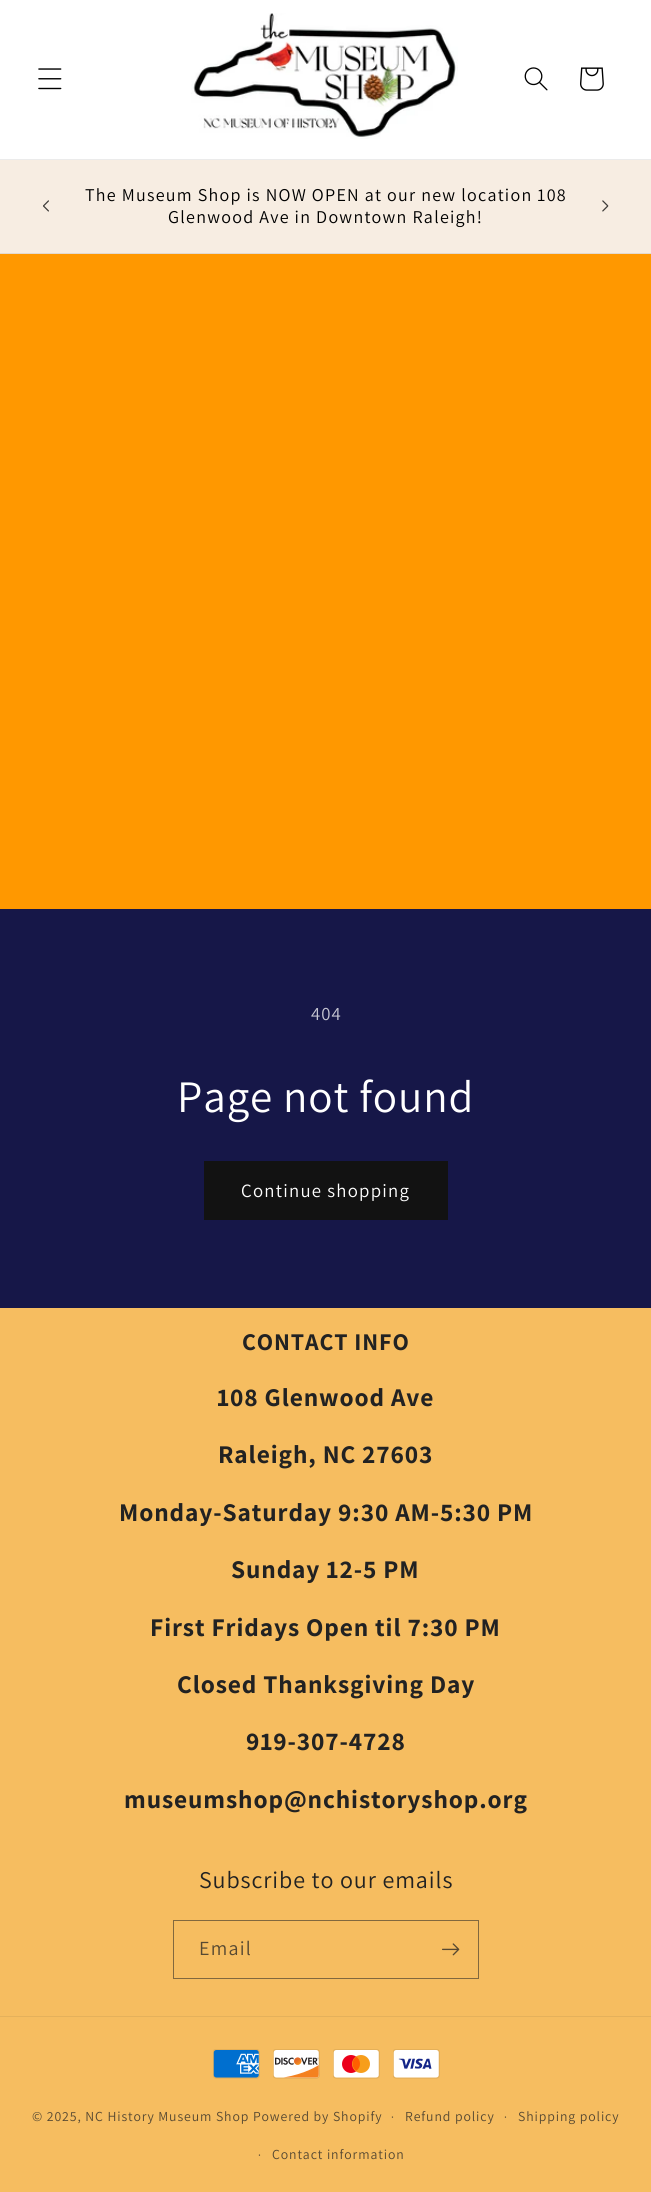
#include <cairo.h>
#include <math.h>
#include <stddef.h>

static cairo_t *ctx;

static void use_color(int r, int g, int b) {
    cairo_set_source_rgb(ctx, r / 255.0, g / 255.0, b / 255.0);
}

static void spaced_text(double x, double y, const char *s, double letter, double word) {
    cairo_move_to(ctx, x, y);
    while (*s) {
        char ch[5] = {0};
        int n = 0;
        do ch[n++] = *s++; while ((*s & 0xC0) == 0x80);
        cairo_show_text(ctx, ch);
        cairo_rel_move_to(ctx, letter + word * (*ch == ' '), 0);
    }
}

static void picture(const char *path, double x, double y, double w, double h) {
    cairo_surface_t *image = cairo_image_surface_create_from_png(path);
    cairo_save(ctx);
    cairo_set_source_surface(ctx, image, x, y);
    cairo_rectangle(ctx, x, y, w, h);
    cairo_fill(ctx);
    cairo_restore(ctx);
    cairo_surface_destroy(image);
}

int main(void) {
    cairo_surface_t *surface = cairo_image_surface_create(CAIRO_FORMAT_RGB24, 651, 2192);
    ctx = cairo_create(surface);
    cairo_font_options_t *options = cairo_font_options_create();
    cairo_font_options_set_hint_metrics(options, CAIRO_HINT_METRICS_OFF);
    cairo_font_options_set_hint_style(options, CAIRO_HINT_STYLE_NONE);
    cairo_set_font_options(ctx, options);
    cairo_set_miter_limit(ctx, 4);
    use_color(22, 23, 72);
    cairo_paint(ctx);
    use_color(255, 255, 255);
    cairo_rectangle(ctx, 0, 0, 651, 159);
    cairo_fill(ctx);
    use_color(235, 235, 235);
    cairo_rectangle(ctx, 0, 159, 651, 1);
    cairo_fill(ctx);
    picture("img1.png", 38, 68, 24, 22);
    picture("img2.png", 191, 13, 267, 126);
    picture("img3.png", 524, 67, 24, 24);
    picture("img4.png", 580, 67, 24, 24);
    use_color(247, 237, 226);
    cairo_rectangle(ctx, 0, 160, 651, 93);
    cairo_fill(ctx);
    use_color(227, 218, 208);
    cairo_rectangle(ctx, 0, 253, 651, 1);
    cairo_fill(ctx);
    picture("img5.png", 43, 200, 6, 12);
    cairo_select_font_face(ctx, "Assistant", CAIRO_FONT_SLANT_NORMAL, CAIRO_FONT_WEIGHT_NORMAL);
    cairo_set_font_size(ctx, 18);
    use_color(0, 0, 0);
    spaced_text(85, 201, "The Museum Shop is NOW OPEN at our new location 108", 1.25, 0);
    spaced_text(168, 223, "Glenwood Ave in Downtown Raleigh!", 1.25, 0);
    picture("img6.png", 602, 200, 7, 12);
    use_color(255, 152, 0);
    cairo_rectangle(ctx, 0, 254, 651, 655);
    cairo_fill(ctx);
    cairo_set_font_size(ctx, 18.75);
    use_color(197, 197, 209);
    spaced_text(311, 1020, "404", 1, 0);
    cairo_set_font_size(ctx, 45);
    use_color(255, 255, 255);
    spaced_text(177, 1112, "Page not found", 0.9, 0);
    use_color(18, 18, 18);
    cairo_rectangle(ctx, 204, 1161, 244, 59);
    cairo_fill(ctx);
    cairo_set_font_size(ctx, 18.75);
    use_color(255, 255, 255);
    spaced_text(241, 1197, "Continue shopping", 1.25, 0);
    use_color(246, 189, 96);
    cairo_rectangle(ctx, 0, 1308, 651, 884);
    cairo_fill(ctx);
    cairo_select_font_face(ctx, "Assistant", CAIRO_FONT_SLANT_NORMAL, CAIRO_FONT_WEIGHT_BOLD);
    cairo_set_font_size(ctx, 24);
    use_color(34, 34, 34);
    spaced_text(242, 1350, "CONTACT INFO", 0.9, 0);
    cairo_set_font_size(ctx, 25.5);
    spaced_text(217, 1406, "108 Glenwood Ave", 0.9, 0);
    spaced_text(218, 1463, "Raleigh, NC 27603", 0.9, 0);
    spaced_text(119, 1521, "Monday-Saturday 9:30 AM-5:30 PM", 0.9, 0);
    spaced_text(231, 1578, "Sunday 12-5 PM", 0.9, 0);
    spaced_text(150, 1636, "First Fridays Open til 7:30 PM", 0.9, 0);
    spaced_text(177, 1693, "Closed Thanksgiving Day", 0.9, 0);
    spaced_text(246, 1750, "919-307-4728", 0.9, 0);
    spaced_text(124, 1808, "museumshop@nchistoryshop.org", 0.9, 0);
    cairo_select_font_face(ctx, "Assistant", CAIRO_FONT_SLANT_NORMAL, CAIRO_FONT_WEIGHT_NORMAL);
    cairo_set_font_size(ctx, 24);
    spaced_text(199, 1888, "Subscribe to our emails", 0.9, 0);
    cairo_rectangle(ctx, 173.5, 1920.5, 305, 58);
    use_color(129, 104, 62);
    cairo_set_line_width(ctx, 1);
    cairo_stroke(ctx);
    cairo_set_font_size(ctx, 20);
    use_color(87, 73, 50);
    spaced_text(199, 1955, "Email", 1.25, 0);
    picture("img7.png", 442, 1943, 18, 13);
    use_color(229, 177, 91);
    cairo_rectangle(ctx, 0, 2016, 651, 1);
    cairo_fill(ctx);
    picture("img8.png", 213, 2049, 47, 30);
    picture("img9.png", 273, 2049, 47, 30);
    picture("img10.png", 333, 2049, 47, 30);
    picture("img11.png", 393, 2049, 47, 30);
    cairo_set_font_size(ctx, 13.75);
    use_color(87, 73, 50);
    spaced_text(32, 2121, "© 2025, NC History Museum Shop Powered by Shopify", 0.9, 0);
    cairo_set_font_size(ctx, 12);
    spaced_text(391, 2121, "·", 0.9, 0);
    cairo_set_font_size(ctx, 13.75);
    spaced_text(405, 2121, "Refund policy", 0.9, 0);
    cairo_set_font_size(ctx, 12);
    spaced_text(504, 2121, "·", 0.9, 0);
    cairo_set_font_size(ctx, 13.75);
    spaced_text(518, 2121, "Shipping policy", 0.9, 0);
    cairo_set_font_size(ctx, 12);
    spaced_text(258, 2159, "·", 0.9, 0);
    cairo_set_font_size(ctx, 13.75);
    spaced_text(272, 2159, "Contact information", 0.9, 0);
    cairo_surface_write_to_png(surface, "result.png");
    cairo_font_options_destroy(options);
    cairo_destroy(ctx);
    cairo_surface_destroy(surface);
    return 0;
}
